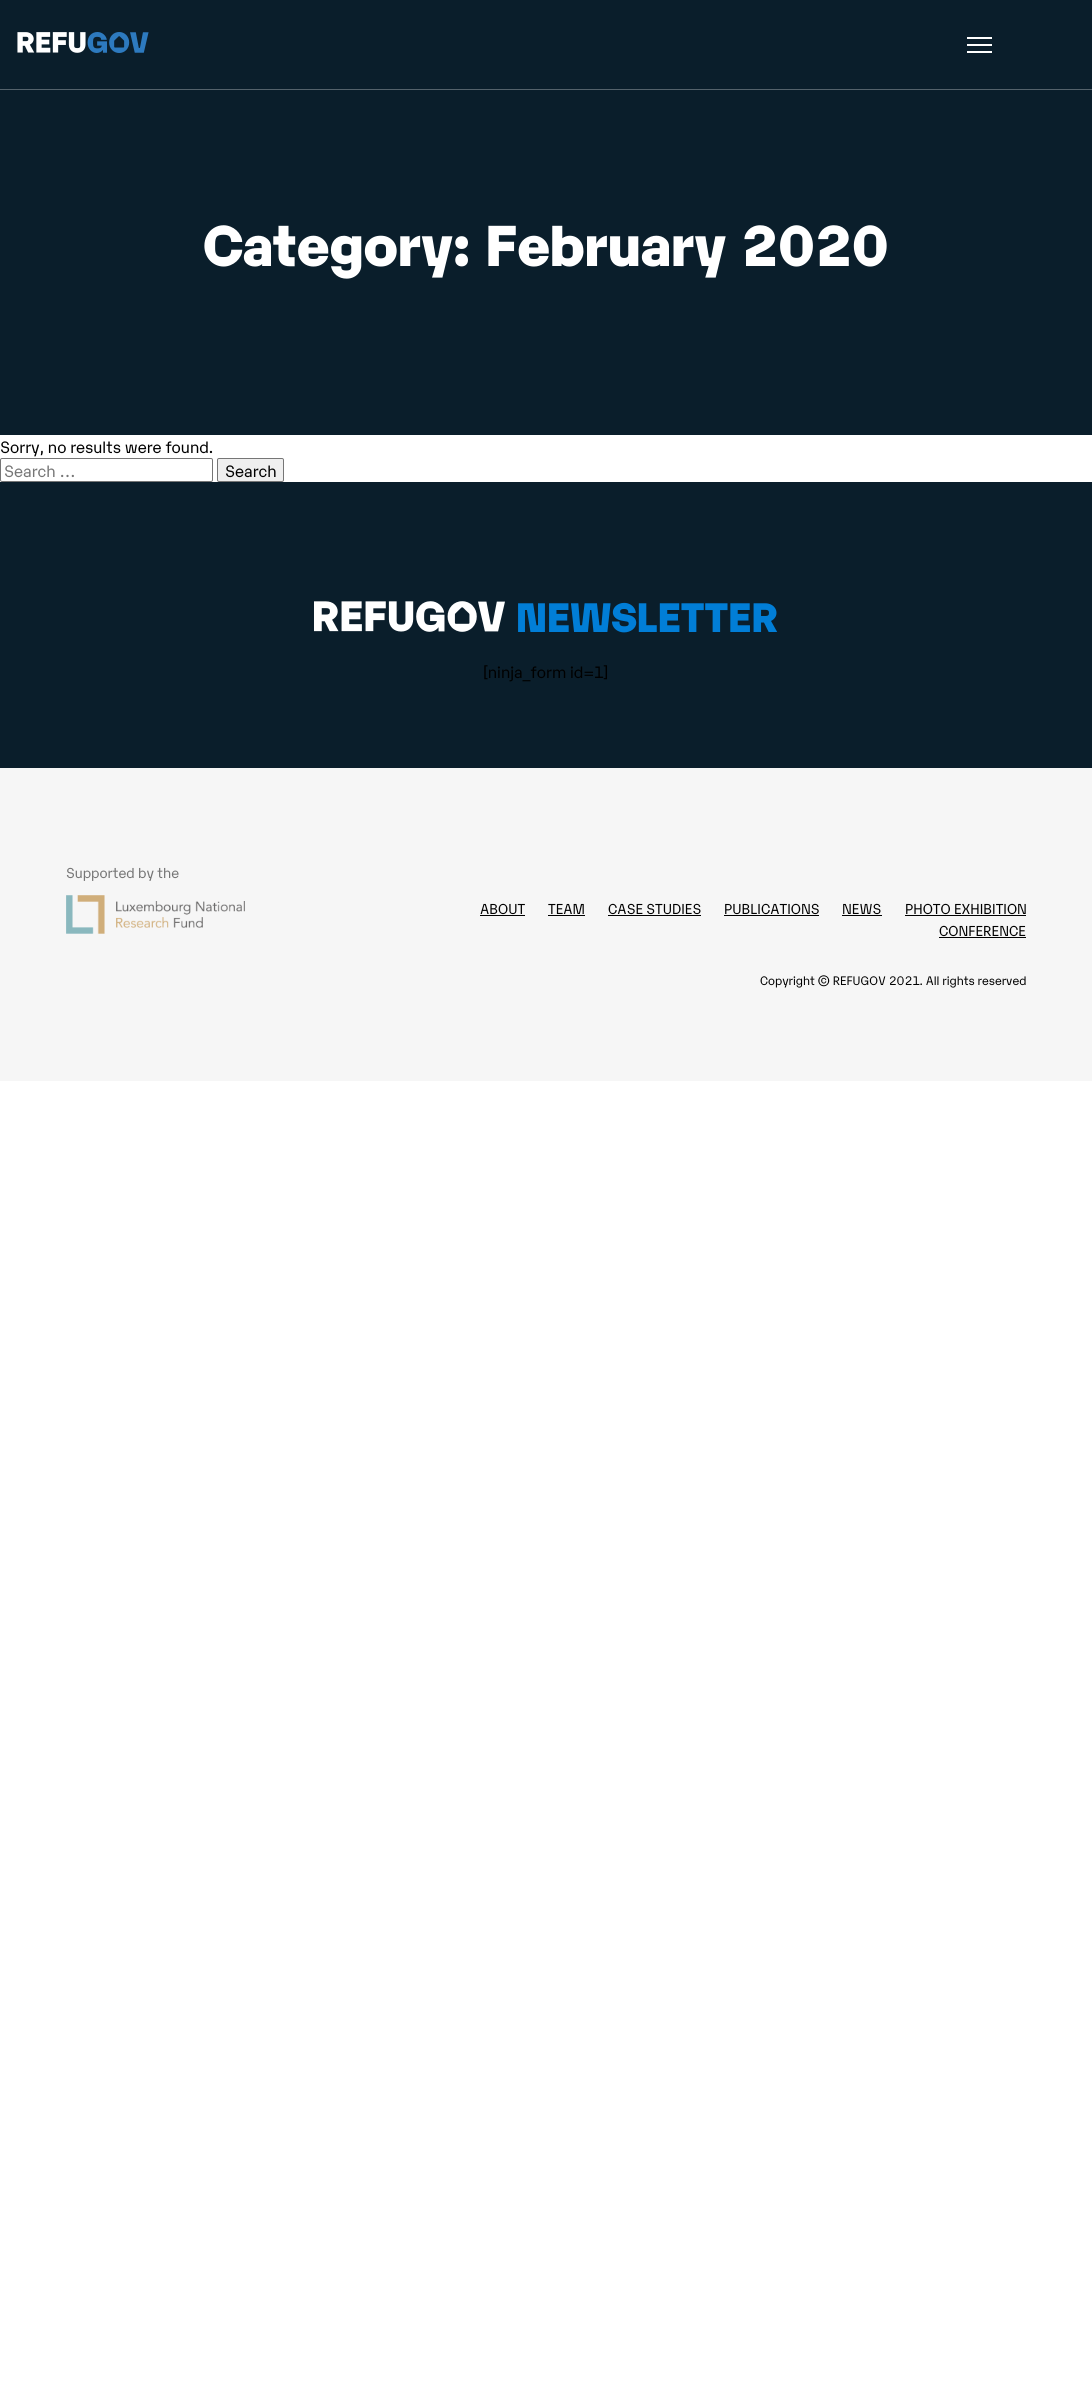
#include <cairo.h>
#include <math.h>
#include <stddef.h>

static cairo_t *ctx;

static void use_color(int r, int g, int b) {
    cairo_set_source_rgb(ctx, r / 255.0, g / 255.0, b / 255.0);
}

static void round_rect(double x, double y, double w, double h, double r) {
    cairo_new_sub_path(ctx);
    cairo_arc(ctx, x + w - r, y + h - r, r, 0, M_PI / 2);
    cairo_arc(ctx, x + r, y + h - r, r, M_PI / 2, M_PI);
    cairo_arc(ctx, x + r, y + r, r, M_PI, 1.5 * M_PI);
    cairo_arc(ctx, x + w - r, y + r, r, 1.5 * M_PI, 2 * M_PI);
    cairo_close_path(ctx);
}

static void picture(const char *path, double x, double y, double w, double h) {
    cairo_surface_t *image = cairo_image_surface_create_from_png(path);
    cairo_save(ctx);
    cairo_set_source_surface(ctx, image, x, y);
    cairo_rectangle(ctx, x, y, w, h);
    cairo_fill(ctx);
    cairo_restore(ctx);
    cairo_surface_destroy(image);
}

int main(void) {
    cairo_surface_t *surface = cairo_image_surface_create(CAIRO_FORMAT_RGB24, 1092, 2381);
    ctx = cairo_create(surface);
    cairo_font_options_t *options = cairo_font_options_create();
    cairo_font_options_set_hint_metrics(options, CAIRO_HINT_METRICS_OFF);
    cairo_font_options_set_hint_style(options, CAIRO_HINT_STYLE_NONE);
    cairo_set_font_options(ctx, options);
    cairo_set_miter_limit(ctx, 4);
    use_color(255, 255, 255);
    cairo_paint(ctx);
    use_color(10, 30, 43);
    cairo_rectangle(ctx, 0, 0, 1092, 435);
    cairo_fill(ctx);
    use_color(84, 98, 107);
    cairo_rectangle(ctx, 0, 89, 1092, 1);
    cairo_fill(ctx);
    picture("img1.png", 17, 32, 132, 21);
    use_color(255, 255, 255);
    cairo_rectangle(ctx, 967, 44, 25, 2);
    cairo_fill(ctx);
    cairo_rectangle(ctx, 967, 37, 25, 2);
    cairo_fill(ctx);
    cairo_rectangle(ctx, 967, 51, 25, 2);
    cairo_fill(ctx);
    cairo_select_font_face(ctx, "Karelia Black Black", CAIRO_FONT_SLANT_NORMAL, CAIRO_FONT_WEIGHT_NORMAL);
    cairo_set_font_size(ctx, 56);
    cairo_move_to(ctx, 203, 266);
    cairo_show_text(ctx, "Category: February 2020");
    cairo_select_font_face(ctx, "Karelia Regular", CAIRO_FONT_SLANT_NORMAL, CAIRO_FONT_WEIGHT_NORMAL);
    cairo_set_font_size(ctx, 16);
    use_color(0, 0, 0);
    cairo_move_to(ctx, 0, 453);
    cairo_show_text(ctx, "Sorry, no results were found.");
    round_rect(0.5, 458.5, 212, 23, 1.5);
    use_color(118, 118, 118);
    cairo_set_line_width(ctx, 1);
    cairo_stroke(ctx);
    use_color(117, 117, 117);
    cairo_move_to(ctx, 4, 477);
    cairo_show_text(ctx, "Search …");
    use_color(239, 239, 239);
    round_rect(217.5, 458.5, 66, 23, 1.5);
    cairo_fill_preserve(ctx);
    use_color(118, 118, 118);
    cairo_stroke(ctx);
    use_color(0, 0, 0);
    cairo_move_to(ctx, 225, 477);
    cairo_show_text(ctx, "Search");
    use_color(10, 30, 43);
    cairo_rectangle(ctx, 0, 482, 1092, 286);
    cairo_fill(ctx);
    picture("img2.png", 314, 601, 191, 31);
    cairo_select_font_face(ctx, "Karelia Black Black", CAIRO_FONT_SLANT_NORMAL, CAIRO_FONT_WEIGHT_NORMAL);
    cairo_set_font_size(ctx, 40);
    use_color(1, 126, 215);
    cairo_move_to(ctx, 516, 632);
    cairo_show_text(ctx, "NEWSLETTER");
    cairo_select_font_face(ctx, "Karelia Regular", CAIRO_FONT_SLANT_NORMAL, CAIRO_FONT_WEIGHT_NORMAL);
    cairo_set_font_size(ctx, 16);
    use_color(0, 0, 0);
    cairo_move_to(ctx, 483, 678);
    cairo_show_text(ctx, "[ninja_form id=1]");
    use_color(246, 246, 246);
    cairo_rectangle(ctx, 0, 768, 1092, 313);
    cairo_fill(ctx);
    cairo_set_font_size(ctx, 14);
    use_color(117, 117, 117);
    cairo_move_to(ctx, 66, 878);
    cairo_show_text(ctx, "Supported by the");
    picture("img3.png", 66, 895, 179, 39);
    use_color(0, 0, 0);
    cairo_move_to(ctx, 480, 914);
    cairo_show_text(ctx, "ABOUT");
    cairo_rectangle(ctx, 480, 915, 45, 1);
    cairo_fill(ctx);
    cairo_move_to(ctx, 548, 914);
    cairo_show_text(ctx, "TEAM");
    cairo_rectangle(ctx, 548, 915, 37, 1);
    cairo_fill(ctx);
    cairo_move_to(ctx, 608, 914);
    cairo_show_text(ctx, "CASE STUDIES");
    cairo_rectangle(ctx, 608, 915, 93, 1);
    cairo_fill(ctx);
    cairo_move_to(ctx, 724, 914);
    cairo_show_text(ctx, "PUBLICATIONS");
    cairo_rectangle(ctx, 724, 915, 95, 1);
    cairo_fill(ctx);
    cairo_move_to(ctx, 842, 914);
    cairo_show_text(ctx, "NEWS");
    cairo_rectangle(ctx, 842, 915, 40, 1);
    cairo_fill(ctx);
    cairo_move_to(ctx, 905, 914);
    cairo_show_text(ctx, "PHOTO EXHIBITION");
    cairo_rectangle(ctx, 905, 915, 121, 1);
    cairo_fill(ctx);
    cairo_move_to(ctx, 939, 936);
    cairo_show_text(ctx, "CONFERENCE");
    cairo_rectangle(ctx, 939, 937, 87, 1);
    cairo_fill(ctx);
    cairo_set_font_size(ctx, 12);
    cairo_move_to(ctx, 760, 985);
    cairo_show_text(ctx, "Copyright © REFUGOV 2021. All rights reserved");
    cairo_surface_write_to_png(surface, "result.png");
    cairo_font_options_destroy(options);
    cairo_destroy(ctx);
    cairo_surface_destroy(surface);
    return 0;
}
